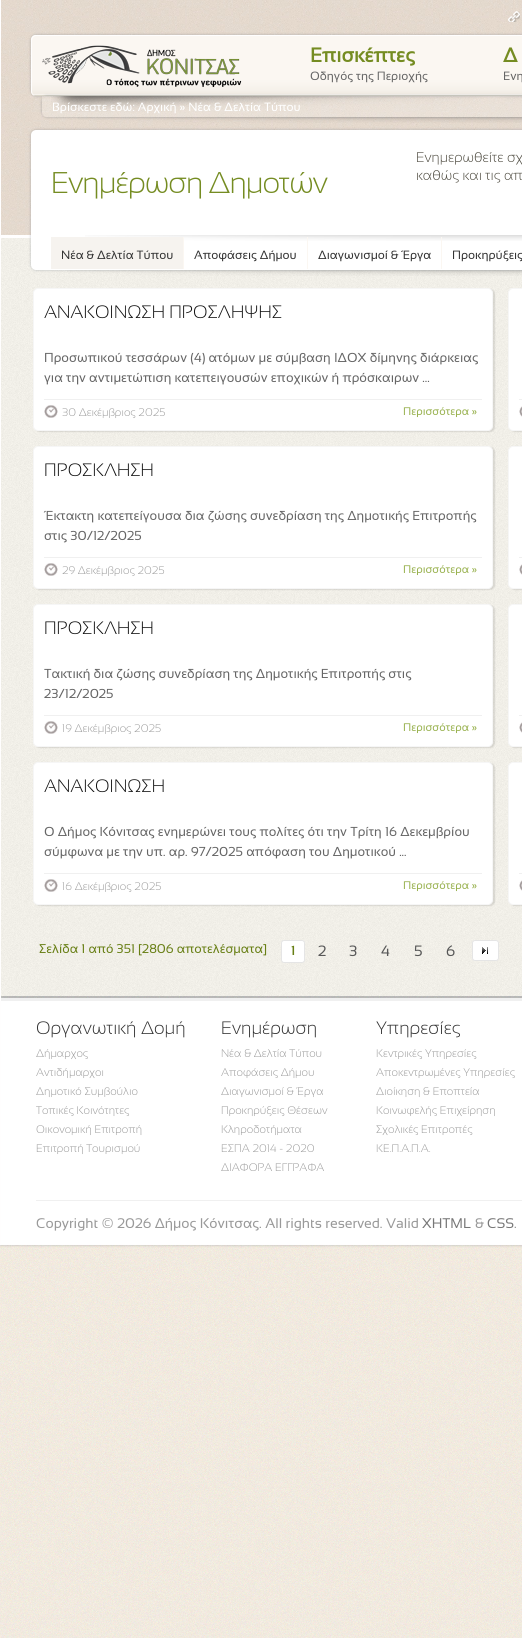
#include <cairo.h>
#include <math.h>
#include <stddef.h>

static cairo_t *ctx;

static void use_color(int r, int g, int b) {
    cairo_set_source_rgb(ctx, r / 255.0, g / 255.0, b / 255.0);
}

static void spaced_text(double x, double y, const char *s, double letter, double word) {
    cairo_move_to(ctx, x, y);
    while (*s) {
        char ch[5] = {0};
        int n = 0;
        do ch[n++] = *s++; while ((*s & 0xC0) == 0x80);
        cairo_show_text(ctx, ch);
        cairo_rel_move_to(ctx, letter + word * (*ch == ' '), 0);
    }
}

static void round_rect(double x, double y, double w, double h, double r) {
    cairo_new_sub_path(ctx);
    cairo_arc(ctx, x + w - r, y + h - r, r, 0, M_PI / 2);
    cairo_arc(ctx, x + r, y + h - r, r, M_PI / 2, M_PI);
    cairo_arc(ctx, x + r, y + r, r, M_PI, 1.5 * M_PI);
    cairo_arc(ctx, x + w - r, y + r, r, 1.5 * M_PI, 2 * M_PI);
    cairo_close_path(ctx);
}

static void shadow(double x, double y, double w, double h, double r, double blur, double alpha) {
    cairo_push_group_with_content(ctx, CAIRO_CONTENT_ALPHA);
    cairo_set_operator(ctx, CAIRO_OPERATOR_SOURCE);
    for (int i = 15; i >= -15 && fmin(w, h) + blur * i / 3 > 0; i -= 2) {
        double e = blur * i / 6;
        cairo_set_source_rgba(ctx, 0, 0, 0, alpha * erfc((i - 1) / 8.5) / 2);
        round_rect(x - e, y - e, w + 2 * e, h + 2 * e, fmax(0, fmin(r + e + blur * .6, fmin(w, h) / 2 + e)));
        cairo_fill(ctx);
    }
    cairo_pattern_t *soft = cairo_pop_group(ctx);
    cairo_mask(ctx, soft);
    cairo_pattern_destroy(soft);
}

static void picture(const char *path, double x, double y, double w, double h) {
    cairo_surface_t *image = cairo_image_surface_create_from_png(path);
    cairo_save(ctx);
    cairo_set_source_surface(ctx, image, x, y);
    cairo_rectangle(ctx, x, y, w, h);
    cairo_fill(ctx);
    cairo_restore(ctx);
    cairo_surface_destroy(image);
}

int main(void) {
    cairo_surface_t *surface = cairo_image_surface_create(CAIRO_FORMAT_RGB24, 522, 1638);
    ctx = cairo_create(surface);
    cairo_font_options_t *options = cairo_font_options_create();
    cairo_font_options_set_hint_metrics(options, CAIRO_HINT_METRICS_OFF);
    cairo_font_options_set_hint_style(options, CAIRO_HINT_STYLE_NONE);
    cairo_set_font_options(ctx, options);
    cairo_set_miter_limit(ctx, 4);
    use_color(255, 255, 255);
    cairo_paint(ctx);
    picture("img1.png", 0, 996, 522, 642);
    use_color(14, 32, 59);
    shadow(0, 0, 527, 1245, 0, 1.5, 0.25);
    use_color(255, 254, 254);
    cairo_rectangle(ctx, 0, 1244, 522, 1);
    cairo_fill(ctx);
    cairo_rectangle(ctx, 0, 0, 1, 1245);
    cairo_fill(ctx);
    picture("img7.png", 1, 0, 521, 235);
    picture("img2.png", 508, 11, 12, 11);
    use_color(14, 32, 59);
    shadow(31, 35, 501, 61, 5, 1.5, 0.25);
    picture("img3.png", 31, 35, 491, 61);
    use_color(255, 254, 254);
    cairo_set_fill_rule(ctx, CAIRO_FILL_RULE_EVEN_ODD);
    cairo_new_path(ctx);
    cairo_move_to(ctx, 36, 35);
    cairo_line_to(ctx, 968, 35);
    cairo_curve_to(ctx, 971, 35, 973, 37, 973, 40);
    cairo_line_to(ctx, 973, 91);
    cairo_curve_to(ctx, 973, 94, 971, 96, 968, 96);
    cairo_line_to(ctx, 36, 96);
    cairo_curve_to(ctx, 33, 96, 31, 94, 31, 91);
    cairo_line_to(ctx, 31, 40);
    cairo_curve_to(ctx, 31, 37, 33, 35, 36, 35);
    cairo_close_path(ctx);
    cairo_move_to(ctx, 36, 36);
    cairo_line_to(ctx, 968, 36);
    cairo_curve_to(ctx, 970, 36, 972, 38, 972, 40);
    cairo_line_to(ctx, 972, 91);
    cairo_curve_to(ctx, 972, 94, 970, 96, 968, 96);
    cairo_line_to(ctx, 36, 96);
    cairo_curve_to(ctx, 34, 96, 32, 94, 32, 91);
    cairo_line_to(ctx, 32, 40);
    cairo_curve_to(ctx, 32, 38, 34, 36, 36, 36);
    cairo_close_path(ctx);
    cairo_fill(ctx);
    picture("img4.png", 42, 45, 200, 43);
    cairo_select_font_face(ctx, "Sansation", CAIRO_FONT_SLANT_NORMAL, CAIRO_FONT_WEIGHT_BOLD);
    cairo_set_font_size(ctx, 20);
    use_color(117, 140, 34);
    cairo_move_to(ctx, 310, 62);
    cairo_show_text(ctx, "Επισκέπτες");
    cairo_select_font_face(ctx, "Sansation", CAIRO_FONT_SLANT_NORMAL, CAIRO_FONT_WEIGHT_NORMAL);
    cairo_set_font_size(ctx, 12);
    use_color(102, 102, 102);
    cairo_move_to(ctx, 310, 80);
    cairo_show_text(ctx, "Οδηγός της Περιοχής");
    cairo_select_font_face(ctx, "Sansation", CAIRO_FONT_SLANT_NORMAL, CAIRO_FONT_WEIGHT_BOLD);
    cairo_set_font_size(ctx, 20);
    use_color(117, 140, 34);
    cairo_move_to(ctx, 503, 62);
    cairo_show_text(ctx, "Δ");
    cairo_select_font_face(ctx, "Sansation", CAIRO_FONT_SLANT_NORMAL, CAIRO_FONT_WEIGHT_NORMAL);
    cairo_set_font_size(ctx, 12);
    use_color(102, 102, 102);
    cairo_move_to(ctx, 503, 80);
    cairo_show_text(ctx, "Ενη");
    cairo_save(ctx);
    cairo_new_path(ctx);
    cairo_move_to(ctx, 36, 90);
    cairo_line_to(ctx, 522, 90);
    cairo_line_to(ctx, 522, 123);
    cairo_line_to(ctx, 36, 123);
    cairo_close_path(ctx);
    cairo_move_to(ctx, 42, 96);
    cairo_line_to(ctx, 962, 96);
    cairo_line_to(ctx, 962, 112);
    cairo_curve_to(ctx, 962, 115, 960, 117, 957, 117);
    cairo_line_to(ctx, 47, 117);
    cairo_curve_to(ctx, 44, 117, 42, 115, 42, 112);
    cairo_close_path(ctx);
    cairo_clip(ctx);
    use_color(14, 32, 59);
    shadow(42, 96, 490, 21, 5, 1.5, 0.25);
    cairo_restore(ctx);
    cairo_set_source_rgba(ctx, 1, 1, 1, 0.2);
    cairo_new_path(ctx);
    cairo_move_to(ctx, 42, 96);
    cairo_line_to(ctx, 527, 96);
    cairo_line_to(ctx, 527, 112);
    cairo_curve_to(ctx, 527, 115, 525, 117, 522, 117);
    cairo_line_to(ctx, 47, 117);
    cairo_curve_to(ctx, 44, 117, 42, 115, 42, 112);
    cairo_close_path(ctx);
    cairo_fill(ctx);
    picture("img5.png", 51, 96, 471, 16);
    use_color(255, 255, 255);
    cairo_move_to(ctx, 52, 111);
    cairo_show_text(ctx, "Βρίσκεστε εδώ: Αρχική » Νέα & Δελτία Τύπου");
    picture("img6.png", 78, 117, 444, 6);
    use_color(255, 254, 254);
    cairo_rectangle(ctx, 1, 235, 30, 3);
    cairo_fill(ctx);
    picture("img10.png", 1, 238, 521, 758);
    use_color(14, 32, 59);
    shadow(31, 130, 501, 140, 5, 1.5, 0.25);
    use_color(255, 255, 255);
    round_rect(31, 130, 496, 140, 5);
    cairo_fill(ctx);
    cairo_select_font_face(ctx, "Sansation Light Light", CAIRO_FONT_SLANT_NORMAL, CAIRO_FONT_WEIGHT_NORMAL);
    cairo_set_font_size(ctx, 30);
    use_color(117, 140, 34);
    spaced_text(51, 193, "Ενημέρωση Δημοτών", -1, 0);
    cairo_set_font_size(ctx, 14);
    use_color(77, 74, 63);
    cairo_move_to(ctx, 416, 162);
    cairo_show_text(ctx, "Ενημερωθείτε σχ");
    cairo_move_to(ctx, 416, 180);
    cairo_show_text(ctx, "καθώς και τις απ");
    picture("img8.png", 85, 235, 437, 6);
    use_color(246, 243, 239);
    cairo_rectangle(ctx, 51, 237, 132, 32);
    cairo_fill(ctx);
    cairo_select_font_face(ctx, "Sansation", CAIRO_FONT_SLANT_NORMAL, CAIRO_FONT_WEIGHT_NORMAL);
    cairo_set_font_size(ctx, 12);
    use_color(51, 51, 51);
    cairo_move_to(ctx, 61, 259);
    cairo_show_text(ctx, "Νέα & Δελτία Τύπου");
    use_color(251, 247, 242);
    cairo_rectangle(ctx, 183, 237, 1, 32);
    cairo_fill(ctx);
    use_color(51, 51, 51);
    cairo_move_to(ctx, 194, 259);
    cairo_show_text(ctx, "Αποφάσεις Δήμου");
    use_color(251, 247, 242);
    cairo_rectangle(ctx, 307, 237, 1, 32);
    cairo_fill(ctx);
    use_color(51, 51, 51);
    cairo_move_to(ctx, 318, 259);
    cairo_show_text(ctx, "Διαγωνισμοί & Έργα");
    use_color(251, 247, 242);
    cairo_rectangle(ctx, 441, 237, 1, 32);
    cairo_fill(ctx);
    use_color(51, 51, 51);
    cairo_move_to(ctx, 452, 259);
    cairo_show_text(ctx, "Προκηρύξεις");
    picture("img9.png", 67, 270, 455, 6);
    use_color(0, 0, 0);
    shadow(35, 289, 460, 143, 5, 0.5, 0.1);
    use_color(255, 255, 255);
    round_rect(33.5, 288.5, 459, 142, 4.5);
    cairo_fill_preserve(ctx);
    use_color(246, 246, 246);
    cairo_set_line_width(ctx, 1);
    cairo_stroke(ctx);
    cairo_select_font_face(ctx, "Sansation Light Light", CAIRO_FONT_SLANT_NORMAL, CAIRO_FONT_WEIGHT_NORMAL);
    cairo_set_font_size(ctx, 18);
    use_color(17, 17, 17);
    cairo_move_to(ctx, 44, 318);
    cairo_show_text(ctx, "ΑΝΑΚΟΙΝΩΣΗ ΠΡΟΣΛΗΨΗΣ");
    cairo_select_font_face(ctx, "Sansation", CAIRO_FONT_SLANT_NORMAL, CAIRO_FONT_WEIGHT_NORMAL);
    cairo_set_font_size(ctx, 13);
    use_color(102, 102, 102);
    cairo_move_to(ctx, 44, 362);
    cairo_show_text(ctx, "Προσωπικού τεσσάρων (4) ατόμων με σύμβαση ΙΔΟΧ δίμηνης διάρκειας");
    cairo_move_to(ctx, 44, 382);
    cairo_show_text(ctx, "για την αντιμετώπιση κατεπειγουσών εποχικών ή πρόσκαιρων ...");
    use_color(240, 240, 240);
    cairo_rectangle(ctx, 44, 399, 438, 1);
    cairo_fill(ctx);
    picture("img11.png", 44, 405, 14, 13);
    cairo_select_font_face(ctx, "Sansation Light Light", CAIRO_FONT_SLANT_NORMAL, CAIRO_FONT_WEIGHT_NORMAL);
    cairo_set_font_size(ctx, 11);
    use_color(153, 153, 153);
    cairo_move_to(ctx, 62, 416);
    cairo_show_text(ctx, "30 Δεκέμβριος 2025");
    cairo_select_font_face(ctx, "Sansation", CAIRO_FONT_SLANT_NORMAL, CAIRO_FONT_WEIGHT_NORMAL);
    use_color(152, 177, 78);
    cairo_move_to(ctx, 403, 415);
    cairo_show_text(ctx, "Περισσότερα »");
    use_color(0, 0, 0);
    shadow(510, 289, 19, 143, 5, 0.5, 0.1);
    use_color(255, 255, 255);
    round_rect(508.5, 288.5, 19, 142, 4.5);
    cairo_fill_preserve(ctx);
    use_color(246, 246, 246);
    cairo_stroke(ctx);
    use_color(240, 240, 240);
    cairo_rectangle(ctx, 519, 399, 3, 1);
    cairo_fill(ctx);
    picture("img12.png", 519, 406, 3, 11);
    use_color(0, 0, 0);
    shadow(35, 447, 460, 143, 5, 0.5, 0.1);
    use_color(255, 255, 255);
    round_rect(33.5, 446.5, 459, 142, 4.5);
    cairo_fill_preserve(ctx);
    use_color(246, 246, 246);
    cairo_stroke(ctx);
    cairo_select_font_face(ctx, "Sansation Light Light", CAIRO_FONT_SLANT_NORMAL, CAIRO_FONT_WEIGHT_NORMAL);
    cairo_set_font_size(ctx, 18);
    use_color(17, 17, 17);
    cairo_move_to(ctx, 44, 476);
    cairo_show_text(ctx, "ΠΡΟΣΚΛΗΣΗ");
    cairo_select_font_face(ctx, "Sansation", CAIRO_FONT_SLANT_NORMAL, CAIRO_FONT_WEIGHT_NORMAL);
    cairo_set_font_size(ctx, 13);
    use_color(102, 102, 102);
    cairo_move_to(ctx, 44, 520);
    cairo_show_text(ctx, "Έκτακτη κατεπείγουσα δια ζώσης συνεδρίαση της Δημοτικής Επιτροπής");
    cairo_move_to(ctx, 44, 540);
    cairo_show_text(ctx, "στις 30/12/2025");
    use_color(240, 240, 240);
    cairo_rectangle(ctx, 44, 557, 438, 1);
    cairo_fill(ctx);
    picture("img11.png", 44, 563, 14, 13);
    cairo_select_font_face(ctx, "Sansation Light Light", CAIRO_FONT_SLANT_NORMAL, CAIRO_FONT_WEIGHT_NORMAL);
    cairo_set_font_size(ctx, 11);
    use_color(153, 153, 153);
    cairo_move_to(ctx, 62, 574);
    cairo_show_text(ctx, "29 Δεκέμβριος 2025");
    cairo_select_font_face(ctx, "Sansation", CAIRO_FONT_SLANT_NORMAL, CAIRO_FONT_WEIGHT_NORMAL);
    use_color(152, 177, 78);
    cairo_move_to(ctx, 403, 573);
    cairo_show_text(ctx, "Περισσότερα »");
    use_color(0, 0, 0);
    shadow(510, 447, 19, 143, 5, 0.5, 0.1);
    use_color(255, 255, 255);
    round_rect(508.5, 446.5, 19, 142, 4.5);
    cairo_fill_preserve(ctx);
    use_color(246, 246, 246);
    cairo_stroke(ctx);
    use_color(240, 240, 240);
    cairo_rectangle(ctx, 519, 557, 3, 1);
    cairo_fill(ctx);
    picture("img12.png", 519, 564, 3, 11);
    use_color(0, 0, 0);
    shadow(35, 605, 460, 143, 5, 0.5, 0.1);
    use_color(255, 255, 255);
    round_rect(33.5, 604.5, 459, 142, 4.5);
    cairo_fill_preserve(ctx);
    use_color(246, 246, 246);
    cairo_stroke(ctx);
    cairo_select_font_face(ctx, "Sansation Light Light", CAIRO_FONT_SLANT_NORMAL, CAIRO_FONT_WEIGHT_NORMAL);
    cairo_set_font_size(ctx, 18);
    use_color(17, 17, 17);
    cairo_move_to(ctx, 44, 634);
    cairo_show_text(ctx, "ΠΡΟΣΚΛΗΣΗ");
    cairo_select_font_face(ctx, "Sansation", CAIRO_FONT_SLANT_NORMAL, CAIRO_FONT_WEIGHT_NORMAL);
    cairo_set_font_size(ctx, 13);
    use_color(102, 102, 102);
    cairo_move_to(ctx, 44, 678);
    cairo_show_text(ctx, "Τακτική δια ζώσης συνεδρίαση της Δημοτικής Επιτροπής στις");
    cairo_move_to(ctx, 44, 698);
    cairo_show_text(ctx, "23/12/2025");
    use_color(240, 240, 240);
    cairo_rectangle(ctx, 44, 715, 438, 1);
    cairo_fill(ctx);
    picture("img11.png", 44, 721, 14, 13);
    cairo_select_font_face(ctx, "Sansation Light Light", CAIRO_FONT_SLANT_NORMAL, CAIRO_FONT_WEIGHT_NORMAL);
    cairo_set_font_size(ctx, 11);
    use_color(153, 153, 153);
    cairo_move_to(ctx, 62, 732);
    cairo_show_text(ctx, "19 Δεκέμβριος 2025");
    cairo_select_font_face(ctx, "Sansation", CAIRO_FONT_SLANT_NORMAL, CAIRO_FONT_WEIGHT_NORMAL);
    use_color(152, 177, 78);
    cairo_move_to(ctx, 403, 731);
    cairo_show_text(ctx, "Περισσότερα »");
    use_color(0, 0, 0);
    shadow(510, 605, 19, 143, 5, 0.5, 0.1);
    use_color(255, 255, 255);
    round_rect(508.5, 604.5, 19, 142, 4.5);
    cairo_fill_preserve(ctx);
    use_color(246, 246, 246);
    cairo_stroke(ctx);
    use_color(240, 240, 240);
    cairo_rectangle(ctx, 519, 715, 3, 1);
    cairo_fill(ctx);
    picture("img12.png", 519, 722, 3, 11);
    use_color(0, 0, 0);
    shadow(35, 763, 460, 143, 5, 0.5, 0.1);
    use_color(255, 255, 255);
    round_rect(33.5, 762.5, 459, 142, 4.5);
    cairo_fill_preserve(ctx);
    use_color(246, 246, 246);
    cairo_stroke(ctx);
    cairo_select_font_face(ctx, "Sansation Light Light", CAIRO_FONT_SLANT_NORMAL, CAIRO_FONT_WEIGHT_NORMAL);
    cairo_set_font_size(ctx, 18);
    use_color(17, 17, 17);
    cairo_move_to(ctx, 44, 792);
    cairo_show_text(ctx, "ΑΝΑΚΟΙΝΩΣΗ");
    cairo_select_font_face(ctx, "Sansation", CAIRO_FONT_SLANT_NORMAL, CAIRO_FONT_WEIGHT_NORMAL);
    cairo_set_font_size(ctx, 13);
    use_color(102, 102, 102);
    cairo_move_to(ctx, 44, 836);
    cairo_show_text(ctx, "Ο Δήμος Κόνιτσας ενημερώνει τους πολίτες ότι την Τρίτη 16 Δεκεμβρίου");
    cairo_move_to(ctx, 44, 856);
    cairo_show_text(ctx, "σύμφωνα με την υπ. αρ. 97/2025 απόφαση του Δημοτικού ...");
    use_color(240, 240, 240);
    cairo_rectangle(ctx, 44, 873, 438, 1);
    cairo_fill(ctx);
    picture("img11.png", 44, 879, 14, 13);
    cairo_select_font_face(ctx, "Sansation Light Light", CAIRO_FONT_SLANT_NORMAL, CAIRO_FONT_WEIGHT_NORMAL);
    cairo_set_font_size(ctx, 11);
    use_color(153, 153, 153);
    cairo_move_to(ctx, 62, 890);
    cairo_show_text(ctx, "16 Δεκέμβριος 2025");
    cairo_select_font_face(ctx, "Sansation", CAIRO_FONT_SLANT_NORMAL, CAIRO_FONT_WEIGHT_NORMAL);
    use_color(152, 177, 78);
    cairo_move_to(ctx, 403, 889);
    cairo_show_text(ctx, "Περισσότερα »");
    use_color(0, 0, 0);
    shadow(510, 763, 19, 143, 5, 0.5, 0.1);
    use_color(255, 255, 255);
    round_rect(508.5, 762.5, 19, 142, 4.5);
    cairo_fill_preserve(ctx);
    use_color(246, 246, 246);
    cairo_stroke(ctx);
    use_color(240, 240, 240);
    cairo_rectangle(ctx, 519, 873, 3, 1);
    cairo_fill(ctx);
    picture("img12.png", 519, 880, 3, 11);
    cairo_set_font_size(ctx, 12.7);
    use_color(104, 127, 21);
    cairo_move_to(ctx, 39, 953);
    cairo_show_text(ctx, "Σελίδα 1 από 351 [2806 αποτελέσματα]");
    use_color(255, 255, 255);
    round_rect(281.5, 940.5, 23, 22, 2.5);
    cairo_fill_preserve(ctx);
    use_color(229, 229, 229);
    cairo_stroke(ctx);
    cairo_select_font_face(ctx, "Sansation", CAIRO_FONT_SLANT_NORMAL, CAIRO_FONT_WEIGHT_BOLD);
    use_color(104, 127, 21);
    cairo_move_to(ctx, 291, 955);
    cairo_show_text(ctx, "1");
    cairo_select_font_face(ctx, "Sansation", CAIRO_FONT_SLANT_NORMAL, CAIRO_FONT_WEIGHT_NORMAL);
    cairo_set_font_size(ctx, 15);
    use_color(88, 88, 88);
    cairo_move_to(ctx, 318, 956);
    cairo_show_text(ctx, "2");
    cairo_move_to(ctx, 349, 956);
    cairo_show_text(ctx, "3");
    cairo_move_to(ctx, 381, 956);
    cairo_show_text(ctx, "4");
    cairo_move_to(ctx, 414, 956);
    cairo_show_text(ctx, "5");
    cairo_move_to(ctx, 446, 956);
    cairo_show_text(ctx, "6");
    use_color(255, 255, 255);
    round_rect(472.5, 940.5, 26, 20, 2.5);
    cairo_fill_preserve(ctx);
    use_color(229, 229, 229);
    cairo_stroke(ctx);
    picture("img13.png", 482, 947, 6, 7);
    use_color(240, 240, 240);
    cairo_rectangle(ctx, 1, 998, 521, 3);
    cairo_fill(ctx);
    use_color(255, 255, 255);
    cairo_rectangle(ctx, 1, 1001, 521, 243);
    cairo_fill(ctx);
    cairo_select_font_face(ctx, "Sansation Light Light", CAIRO_FONT_SLANT_NORMAL, CAIRO_FONT_WEIGHT_NORMAL);
    cairo_set_font_size(ctx, 18);
    use_color(51, 51, 51);
    cairo_move_to(ctx, 36, 1034);
    cairo_show_text(ctx, "Οργανωτική Δομή");
    cairo_set_font_size(ctx, 11);
    use_color(153, 153, 153);
    cairo_move_to(ctx, 36, 1057);
    cairo_show_text(ctx, "Δήμαρχος");
    cairo_move_to(ctx, 36, 1076);
    cairo_show_text(ctx, "Αντιδήμαρχοι");
    cairo_move_to(ctx, 36, 1095);
    cairo_show_text(ctx, "Δημοτικό Συμβούλιο");
    cairo_move_to(ctx, 36, 1114);
    cairo_show_text(ctx, "Τοπικές Κοινότητες");
    cairo_move_to(ctx, 36, 1133);
    cairo_show_text(ctx, "Οικονομική Επιτροπή");
    cairo_move_to(ctx, 36, 1152);
    cairo_show_text(ctx, "Επιτροπή Τουρισμού");
    cairo_set_font_size(ctx, 18);
    use_color(51, 51, 51);
    cairo_move_to(ctx, 221, 1034);
    cairo_show_text(ctx, "Ενημέρωση");
    cairo_set_font_size(ctx, 11);
    use_color(153, 153, 153);
    cairo_move_to(ctx, 221, 1057);
    cairo_show_text(ctx, "Νέα & Δελτία Τύπου");
    cairo_move_to(ctx, 221, 1076);
    cairo_show_text(ctx, "Αποφάσεις Δήμου");
    cairo_move_to(ctx, 221, 1095);
    cairo_show_text(ctx, "Διαγωνισμοί & Έργα");
    cairo_move_to(ctx, 221, 1114);
    cairo_show_text(ctx, "Προκηρύξεις Θέσεων");
    cairo_move_to(ctx, 221, 1133);
    cairo_show_text(ctx, "Κληροδοτήματα");
    cairo_move_to(ctx, 221, 1152);
    cairo_show_text(ctx, "ΕΣΠΑ 2014 - 2020");
    cairo_move_to(ctx, 221, 1171);
    cairo_show_text(ctx, "ΔΙΑΦΟΡΑ ΕΓΓΡΑΦΑ");
    cairo_set_font_size(ctx, 18);
    use_color(51, 51, 51);
    cairo_move_to(ctx, 376, 1034);
    cairo_show_text(ctx, "Υπηρεσίες");
    cairo_set_font_size(ctx, 11);
    use_color(153, 153, 153);
    cairo_move_to(ctx, 376, 1057);
    cairo_show_text(ctx, "Κεντρικές Υπηρεσίες");
    cairo_move_to(ctx, 376, 1076);
    cairo_show_text(ctx, "Αποκεντρωμένες Υπηρεσίες");
    cairo_move_to(ctx, 376, 1095);
    cairo_show_text(ctx, "Διοίκηση & Εποπτεία");
    cairo_move_to(ctx, 376, 1114);
    cairo_show_text(ctx, "Κοινωφελής Επιχείρηση");
    cairo_move_to(ctx, 376, 1133);
    cairo_show_text(ctx, "Σχολικές Επιτροπές");
    cairo_move_to(ctx, 376, 1152);
    cairo_show_text(ctx, "ΚΕ.Π.Α.Π.Α.");
    use_color(240, 240, 240);
    cairo_rectangle(ctx, 36, 1200, 486, 1);
    cairo_fill(ctx);
    cairo_select_font_face(ctx, "Sansation", CAIRO_FONT_SLANT_NORMAL, CAIRO_FONT_WEIGHT_NORMAL);
    cairo_set_font_size(ctx, 14);
    use_color(153, 153, 153);
    cairo_move_to(ctx, 36, 1228);
    cairo_show_text(ctx, "Copyright © 2026 Δήμος Κόνιτσας. All rights reserved. Valid");
    use_color(119, 119, 119);
    cairo_move_to(ctx, 422, 1228);
    cairo_show_text(ctx, "XHTML");
    use_color(153, 153, 153);
    cairo_move_to(ctx, 475, 1228);
    cairo_show_text(ctx, "&");
    use_color(119, 119, 119);
    cairo_move_to(ctx, 487, 1228);
    cairo_show_text(ctx, "CSS");
    use_color(153, 153, 153);
    cairo_move_to(ctx, 514, 1228);
    cairo_show_text(ctx, ".");
    cairo_surface_write_to_png(surface, "result.png");
    cairo_font_options_destroy(options);
    cairo_destroy(ctx);
    cairo_surface_destroy(surface);
    return 0;
}
